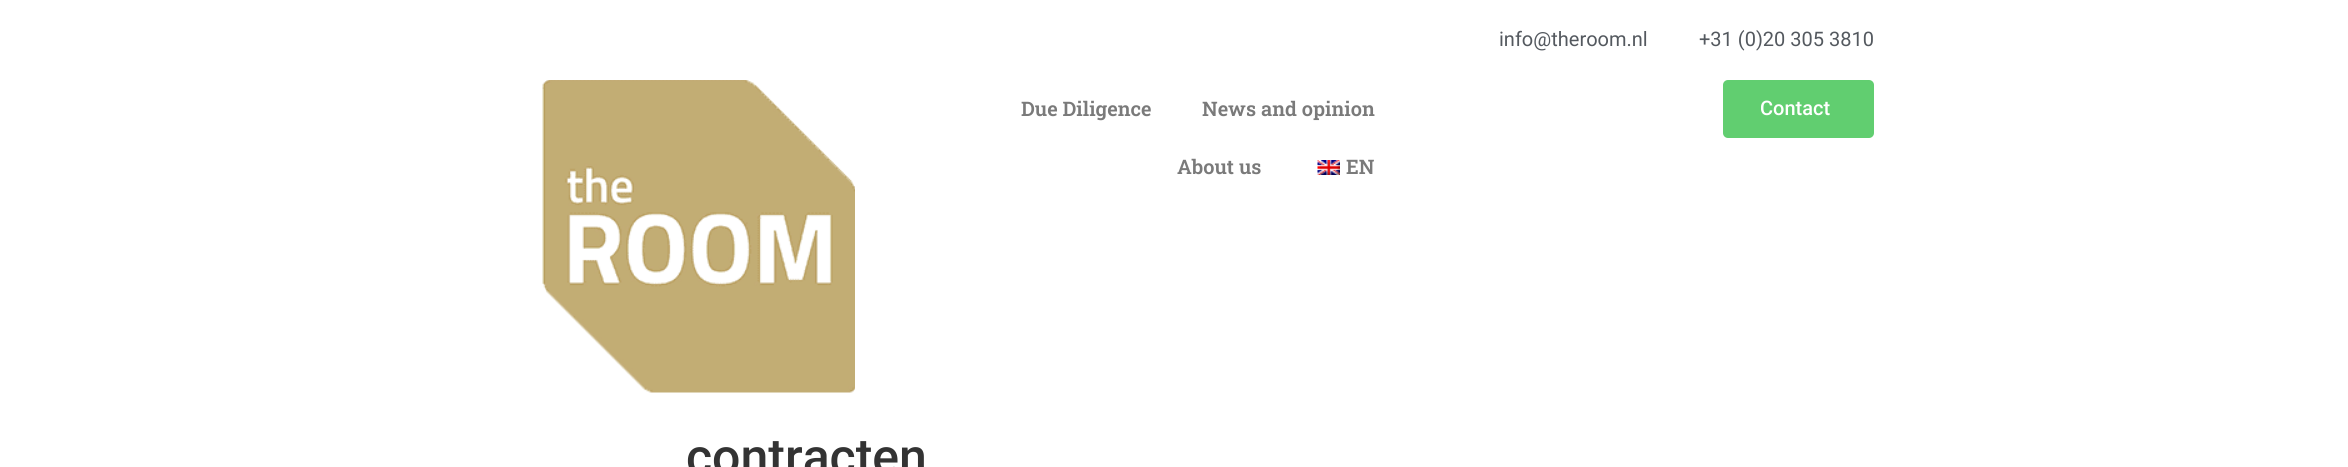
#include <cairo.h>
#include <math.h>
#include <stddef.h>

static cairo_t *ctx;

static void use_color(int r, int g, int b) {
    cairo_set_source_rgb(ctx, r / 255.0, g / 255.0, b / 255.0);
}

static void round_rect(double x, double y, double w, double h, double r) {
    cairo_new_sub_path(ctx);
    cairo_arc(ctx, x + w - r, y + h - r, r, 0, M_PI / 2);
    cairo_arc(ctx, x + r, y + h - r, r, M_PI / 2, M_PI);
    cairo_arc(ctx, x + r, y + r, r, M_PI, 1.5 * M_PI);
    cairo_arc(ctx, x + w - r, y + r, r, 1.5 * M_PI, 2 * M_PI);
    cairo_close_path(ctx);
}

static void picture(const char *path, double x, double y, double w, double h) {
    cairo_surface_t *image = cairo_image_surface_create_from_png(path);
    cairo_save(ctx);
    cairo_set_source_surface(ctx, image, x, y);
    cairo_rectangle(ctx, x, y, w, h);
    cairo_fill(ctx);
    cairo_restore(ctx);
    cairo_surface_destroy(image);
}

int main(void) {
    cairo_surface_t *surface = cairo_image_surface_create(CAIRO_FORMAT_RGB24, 2348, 467);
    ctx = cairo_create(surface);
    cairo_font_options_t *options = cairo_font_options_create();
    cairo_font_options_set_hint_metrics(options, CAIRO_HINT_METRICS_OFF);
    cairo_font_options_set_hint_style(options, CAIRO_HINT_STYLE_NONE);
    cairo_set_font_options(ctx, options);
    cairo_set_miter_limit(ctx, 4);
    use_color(255, 255, 255);
    cairo_paint(ctx);
    cairo_select_font_face(ctx, "Roboto", CAIRO_FONT_SLANT_NORMAL, CAIRO_FONT_WEIGHT_NORMAL);
    cairo_set_font_size(ctx, 20);
    use_color(84, 89, 95);
    cairo_move_to(ctx, 1499, 46);
    cairo_show_text(ctx, "info@theroom.nl");
    cairo_move_to(ctx, 1699, 46);
    cairo_show_text(ctx, "+31 (0)20 305 3810");
    picture("img1.png", 542, 80, 313, 313);
    cairo_select_font_face(ctx, "Roboto Slab SemiBold", CAIRO_FONT_SLANT_NORMAL, CAIRO_FONT_WEIGHT_NORMAL);
    use_color(122, 122, 122);
    cairo_move_to(ctx, 1021, 116);
    cairo_show_text(ctx, "Due Diligence");
    cairo_move_to(ctx, 1202, 116);
    cairo_show_text(ctx, "News and opinion");
    cairo_move_to(ctx, 1177, 174);
    cairo_show_text(ctx, "About us");
    picture("img2.png", 1317, 160, 23, 15);
    cairo_move_to(ctx, 1346, 174);
    cairo_show_text(ctx, "EN");
    use_color(97, 206, 112);
    round_rect(1723, 80, 151, 58, 5);
    cairo_fill(ctx);
    cairo_select_font_face(ctx, "Roboto Medium", CAIRO_FONT_SLANT_NORMAL, CAIRO_FONT_WEIGHT_NORMAL);
    use_color(255, 255, 255);
    cairo_move_to(ctx, 1760, 115);
    cairo_show_text(ctx, "Contact");
    cairo_set_font_size(ctx, 50);
    use_color(51, 51, 51);
    cairo_move_to(ctx, 686, 474);
    cairo_show_text(ctx, "contracten");
    cairo_surface_write_to_png(surface, "result.png");
    cairo_font_options_destroy(options);
    cairo_destroy(ctx);
    cairo_surface_destroy(surface);
    return 0;
}
